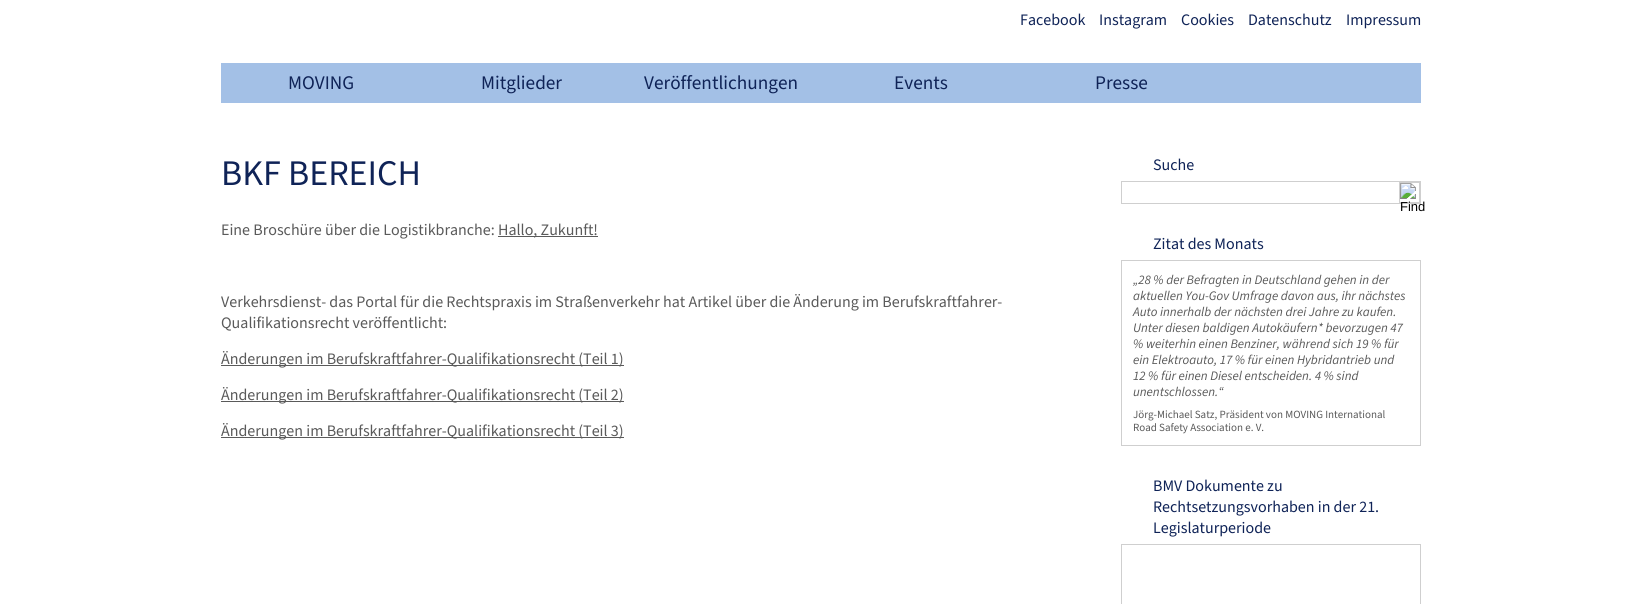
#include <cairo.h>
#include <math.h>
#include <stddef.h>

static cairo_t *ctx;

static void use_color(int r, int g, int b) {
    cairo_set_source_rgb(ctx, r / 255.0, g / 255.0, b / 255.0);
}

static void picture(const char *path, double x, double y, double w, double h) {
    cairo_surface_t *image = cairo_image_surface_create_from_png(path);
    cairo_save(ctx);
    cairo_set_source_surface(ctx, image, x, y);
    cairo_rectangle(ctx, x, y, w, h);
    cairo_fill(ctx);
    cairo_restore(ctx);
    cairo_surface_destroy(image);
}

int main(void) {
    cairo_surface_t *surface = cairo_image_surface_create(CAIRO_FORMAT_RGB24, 1642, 604);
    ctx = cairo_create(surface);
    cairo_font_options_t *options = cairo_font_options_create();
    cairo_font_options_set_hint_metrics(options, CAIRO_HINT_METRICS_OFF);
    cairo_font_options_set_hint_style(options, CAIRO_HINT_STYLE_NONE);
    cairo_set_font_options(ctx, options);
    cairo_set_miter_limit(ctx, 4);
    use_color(255, 255, 255);
    cairo_paint(ctx);
    cairo_select_font_face(ctx, "Source Sans 3", CAIRO_FONT_SLANT_NORMAL, CAIRO_FONT_WEIGHT_NORMAL);
    cairo_set_font_size(ctx, 16);
    use_color(15, 35, 87);
    cairo_move_to(ctx, 1020, 25);
    cairo_show_text(ctx, "Facebook");
    cairo_move_to(ctx, 1099, 25);
    cairo_show_text(ctx, "Instagram");
    cairo_move_to(ctx, 1181, 25);
    cairo_show_text(ctx, "Cookies");
    cairo_move_to(ctx, 1248, 25);
    cairo_show_text(ctx, "Datenschutz");
    cairo_move_to(ctx, 1346, 25);
    cairo_show_text(ctx, "Impressum");
    use_color(163, 192, 230);
    cairo_rectangle(ctx, 221, 63, 1200, 40);
    cairo_fill(ctx);
    cairo_set_font_size(ctx, 19.25);
    use_color(15, 35, 87);
    cairo_move_to(ctx, 288, 89);
    cairo_show_text(ctx, "MOVING");
    cairo_move_to(ctx, 481, 89);
    cairo_show_text(ctx, "Mitglieder");
    cairo_move_to(ctx, 644, 89);
    cairo_show_text(ctx, "Veröffentlichungen");
    cairo_move_to(ctx, 894, 89);
    cairo_show_text(ctx, "Events");
    cairo_move_to(ctx, 1095, 89);
    cairo_show_text(ctx, "Presse");
    cairo_set_font_size(ctx, 36);
    cairo_move_to(ctx, 221, 185);
    cairo_show_text(ctx, "BKF BEREICH");
    cairo_set_font_size(ctx, 16);
    use_color(90, 90, 90);
    cairo_move_to(ctx, 221, 235);
    cairo_show_text(ctx, "Eine Broschüre über die Logistikbranche:");
    cairo_rectangle(ctx, 498, 236, 100, 1);
    cairo_fill(ctx);
    cairo_move_to(ctx, 498, 235);
    cairo_show_text(ctx, "Hallo, Zukunft!");
    cairo_move_to(ctx, 221, 307);
    cairo_show_text(ctx, "Verkehrsdienst- das Portal für die Rechtspraxis im Straßenverkehr hat Artikel über die Änderung im Berufskraftfahrer-");
    cairo_move_to(ctx, 221, 328);
    cairo_show_text(ctx, "Qualifikationsrecht veröffentlicht:");
    cairo_rectangle(ctx, 221, 365, 403, 1);
    cairo_fill(ctx);
    cairo_move_to(ctx, 221, 364);
    cairo_show_text(ctx, "Änderungen im Berufskraftfahrer-Qualifikationsrecht (Teil 1)");
    cairo_rectangle(ctx, 221, 401, 403, 1);
    cairo_fill(ctx);
    cairo_move_to(ctx, 221, 400);
    cairo_show_text(ctx, "Änderungen im Berufskraftfahrer-Qualifikationsrecht (Teil 2)");
    cairo_rectangle(ctx, 221, 437, 403, 1);
    cairo_fill(ctx);
    cairo_move_to(ctx, 221, 436);
    cairo_show_text(ctx, "Änderungen im Berufskraftfahrer-Qualifikationsrecht (Teil 3)");
    use_color(15, 35, 87);
    cairo_move_to(ctx, 1153, 170);
    cairo_show_text(ctx, "Suche");
    cairo_rectangle(ctx, 1121.5, 181.5, 299, 22);
    use_color(207, 207, 207);
    cairo_set_line_width(ctx, 1);
    cairo_stroke(ctx);
    cairo_rectangle(ctx, 1399.5, 182.5, 20, 20);
    cairo_stroke(ctx);
    picture("img1.png", 1400, 183, 16, 16);
    cairo_select_font_face(ctx, "Liberation Sans", CAIRO_FONT_SLANT_NORMAL, CAIRO_FONT_WEIGHT_NORMAL);
    cairo_set_font_size(ctx, 13);
    use_color(0, 0, 0);
    cairo_move_to(ctx, 1400, 211);
    cairo_show_text(ctx, "Find");
    cairo_select_font_face(ctx, "Source Sans 3", CAIRO_FONT_SLANT_NORMAL, CAIRO_FONT_WEIGHT_NORMAL);
    cairo_set_font_size(ctx, 16);
    use_color(15, 35, 87);
    cairo_move_to(ctx, 1153, 249);
    cairo_show_text(ctx, "Zitat des Monats");
    cairo_rectangle(ctx, 1121.5, 260.5, 299, 185);
    use_color(207, 207, 207);
    cairo_stroke(ctx);
    cairo_select_font_face(ctx, "Source Sans 3", CAIRO_FONT_SLANT_ITALIC, CAIRO_FONT_WEIGHT_NORMAL);
    cairo_set_font_size(ctx, 13);
    use_color(90, 90, 90);
    cairo_move_to(ctx, 1133, 284);
    cairo_show_text(ctx, "„28 % der Befragten in Deutschland gehen in der");
    cairo_move_to(ctx, 1133, 300);
    cairo_show_text(ctx, "aktuellen You-Gov Umfrage davon aus, ihr nächstes");
    cairo_move_to(ctx, 1133, 316);
    cairo_show_text(ctx, "Auto innerhalb der nächsten drei Jahre zu kaufen.");
    cairo_move_to(ctx, 1133, 332);
    cairo_show_text(ctx, "Unter diesen baldigen Autokäufern* bevorzugen 47");
    cairo_move_to(ctx, 1133, 348);
    cairo_show_text(ctx, "% weiterhin einen Benziner, während sich 19 % für");
    cairo_move_to(ctx, 1133, 364);
    cairo_show_text(ctx, "ein Elektroauto, 17 % für einen Hybridantrieb und");
    cairo_move_to(ctx, 1133, 380);
    cairo_show_text(ctx, "12 % für einen Diesel entscheiden. 4 % sind");
    cairo_move_to(ctx, 1133, 396);
    cairo_show_text(ctx, "unentschlossen.“");
    cairo_select_font_face(ctx, "Source Sans 3", CAIRO_FONT_SLANT_NORMAL, CAIRO_FONT_WEIGHT_NORMAL);
    cairo_set_font_size(ctx, 11);
    cairo_move_to(ctx, 1133, 418);
    cairo_show_text(ctx, "Jörg-Michael Satz, Präsident von MOVING International");
    cairo_move_to(ctx, 1133, 431);
    cairo_show_text(ctx, "Road Safety Association e. V.");
    cairo_set_font_size(ctx, 16);
    use_color(15, 35, 87);
    cairo_move_to(ctx, 1153, 491);
    cairo_show_text(ctx, "BMV Dokumente zu");
    cairo_move_to(ctx, 1153, 512);
    cairo_show_text(ctx, "Rechtsetzungsvorhaben in der 21.");
    cairo_move_to(ctx, 1153, 533);
    cairo_show_text(ctx, "Legislaturperiode");
    cairo_rectangle(ctx, 1121.5, 544.5, 299, 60);
    use_color(207, 207, 207);
    cairo_stroke(ctx);
    cairo_surface_write_to_png(surface, "result.png");
    cairo_font_options_destroy(options);
    cairo_destroy(ctx);
    cairo_surface_destroy(surface);
    return 0;
}
